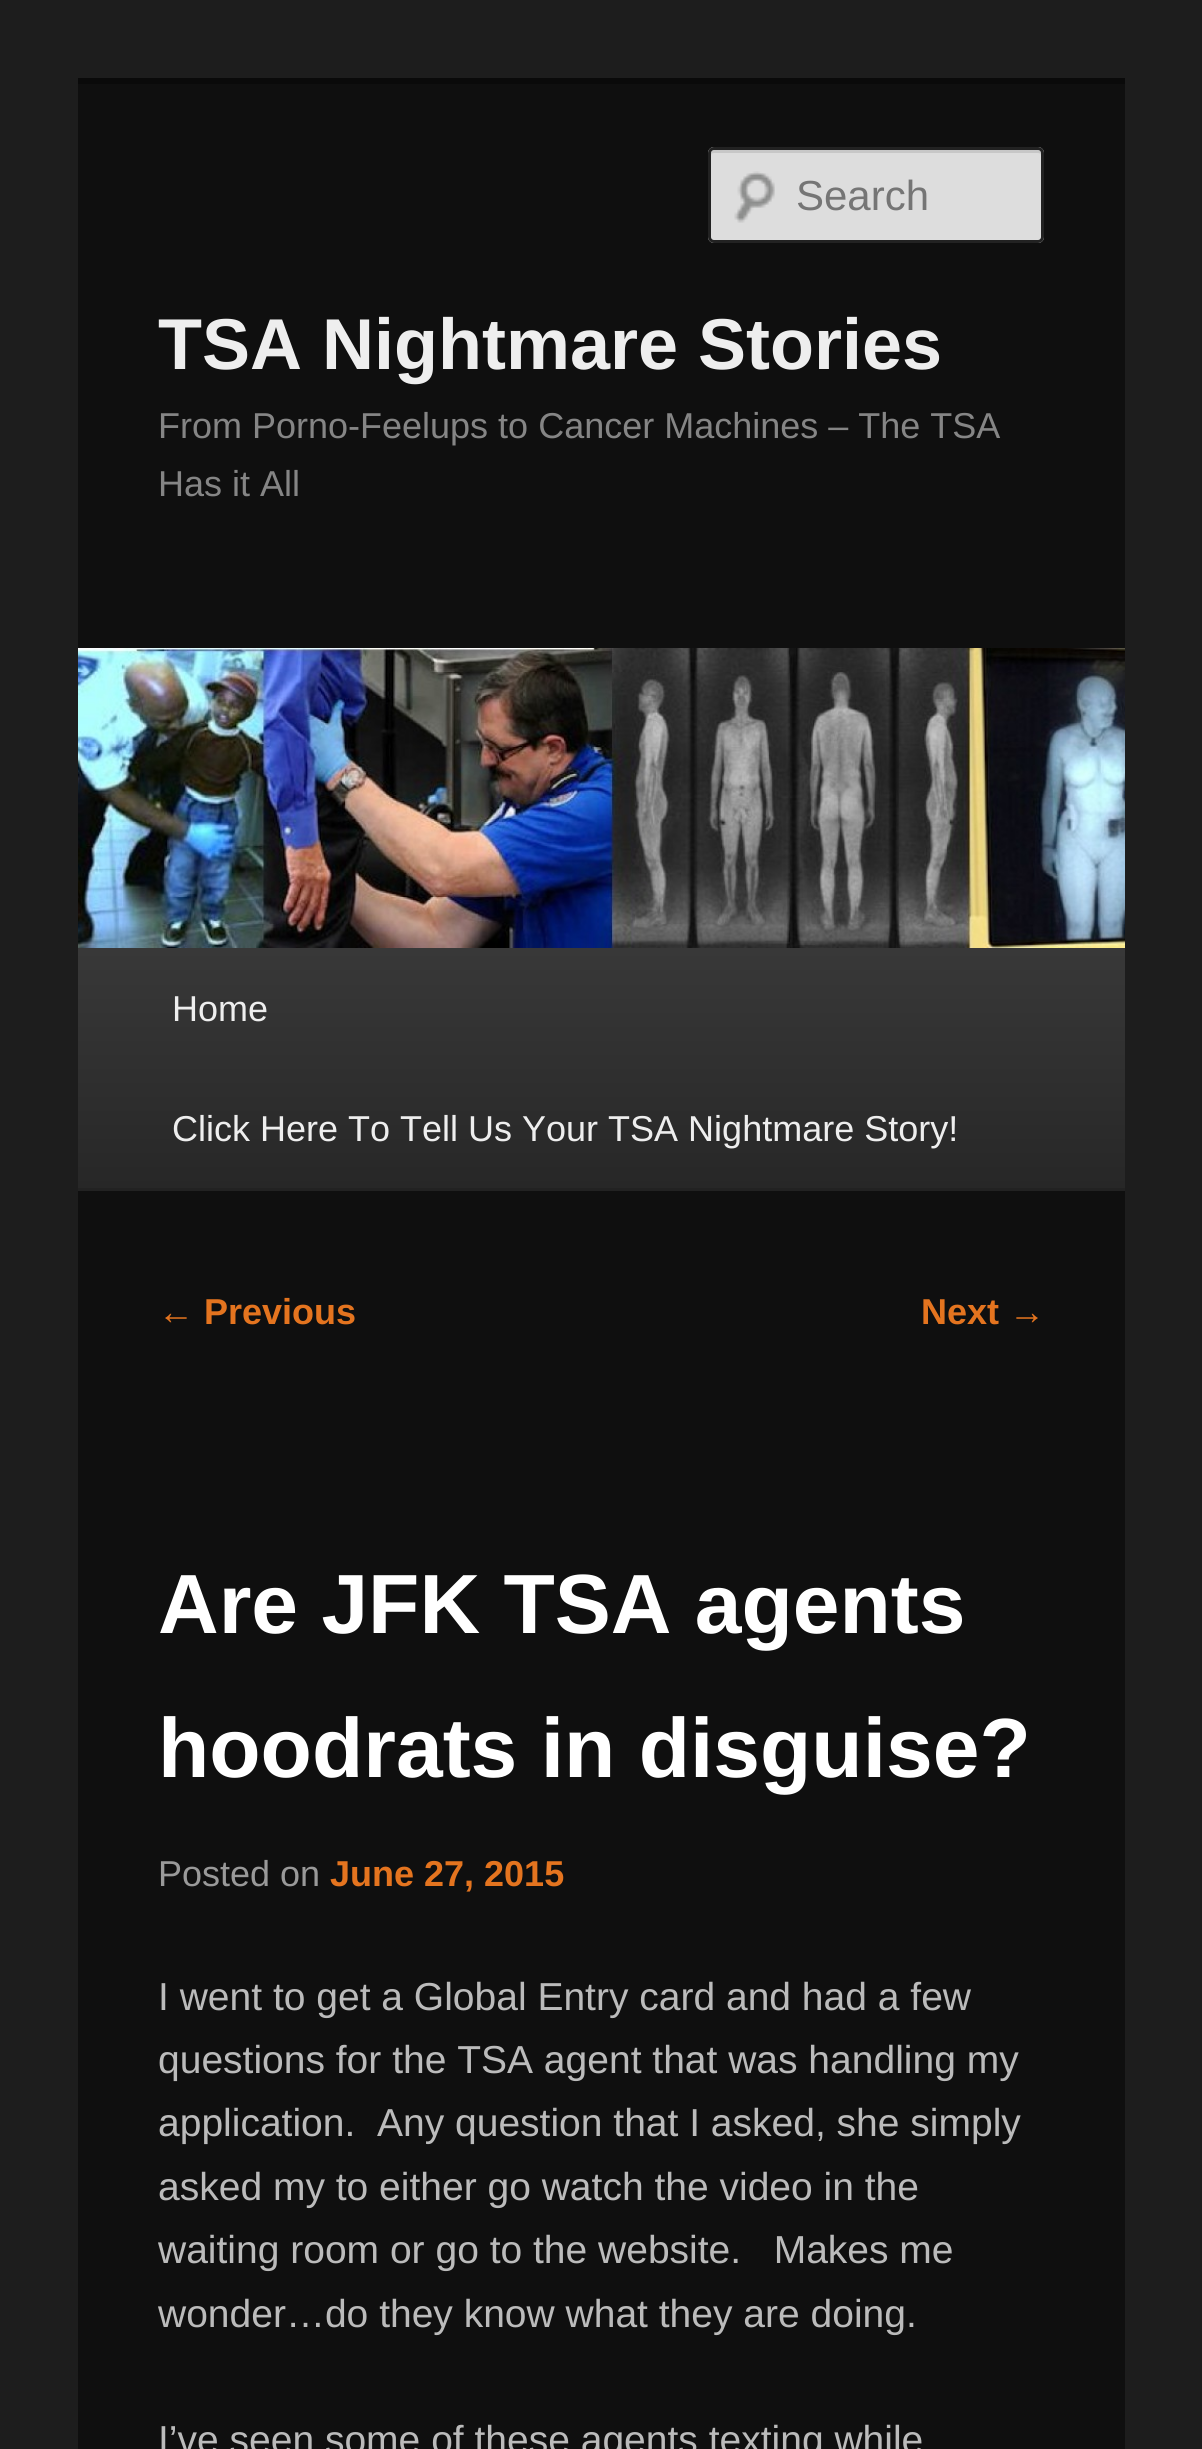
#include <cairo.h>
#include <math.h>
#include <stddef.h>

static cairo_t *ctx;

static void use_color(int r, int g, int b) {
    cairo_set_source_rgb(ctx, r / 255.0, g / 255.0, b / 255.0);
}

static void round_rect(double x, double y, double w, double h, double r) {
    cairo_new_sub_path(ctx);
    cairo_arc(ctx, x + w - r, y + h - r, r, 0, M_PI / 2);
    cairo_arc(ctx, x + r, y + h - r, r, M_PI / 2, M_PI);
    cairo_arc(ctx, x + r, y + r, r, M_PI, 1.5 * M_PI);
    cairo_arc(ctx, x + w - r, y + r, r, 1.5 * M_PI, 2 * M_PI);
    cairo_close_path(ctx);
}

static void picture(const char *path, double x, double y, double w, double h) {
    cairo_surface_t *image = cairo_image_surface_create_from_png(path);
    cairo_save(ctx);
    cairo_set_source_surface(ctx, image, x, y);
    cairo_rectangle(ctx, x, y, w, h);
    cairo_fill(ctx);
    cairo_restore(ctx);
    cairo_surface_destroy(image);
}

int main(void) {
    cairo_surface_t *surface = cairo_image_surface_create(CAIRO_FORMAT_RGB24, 1202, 2449);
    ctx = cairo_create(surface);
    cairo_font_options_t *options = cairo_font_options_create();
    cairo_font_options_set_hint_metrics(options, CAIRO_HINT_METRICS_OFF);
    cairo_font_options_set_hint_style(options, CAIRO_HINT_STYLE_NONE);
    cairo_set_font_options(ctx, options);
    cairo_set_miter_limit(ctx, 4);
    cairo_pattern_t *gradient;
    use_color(29, 29, 29);
    cairo_paint(ctx);
    use_color(15, 15, 15);
    cairo_rectangle(ctx, 78, 84, 1047, 2365);
    cairo_fill(ctx);
    use_color(10, 10, 10);
    cairo_rectangle(ctx, 78, 78, 1047, 6);
    cairo_fill(ctx);
    use_color(221, 221, 221);
    round_rect(708, 147, 336, 96, 6);
    cairo_fill(ctx);
    picture("img1.png", 734, 171, 41, 52);
    use_color(199, 199, 199);
    cairo_new_path(ctx);
    cairo_move_to(ctx, 714, 153);
    cairo_line_to(ctx, 1038, 153);
    cairo_curve_to(ctx, 1040, 153, 1041, 154, 1041, 156);
    cairo_line_to(ctx, 1041, 153);
    cairo_curve_to(ctx, 1041, 151, 1040, 150, 1038, 150);
    cairo_line_to(ctx, 714, 150);
    cairo_curve_to(ctx, 712, 150, 711, 151, 711, 153);
    cairo_line_to(ctx, 711, 156);
    cairo_curve_to(ctx, 711, 154, 712, 153, 714, 153);
    cairo_close_path(ctx);
    cairo_fill(ctx);
    round_rect(709.5, 148.5, 333, 93, 4.5);
    use_color(34, 34, 34);
    cairo_set_line_width(ctx, 3);
    cairo_stroke(ctx);
    cairo_select_font_face(ctx, "Liberation Sans", CAIRO_FONT_SLANT_NORMAL, CAIRO_FONT_WEIGHT_NORMAL);
    cairo_set_font_size(ctx, 42);
    use_color(117, 117, 117);
    cairo_move_to(ctx, 796, 210);
    cairo_show_text(ctx, "Search");
    cairo_select_font_face(ctx, "Liberation Sans", CAIRO_FONT_SLANT_NORMAL, CAIRO_FONT_WEIGHT_BOLD);
    cairo_set_font_size(ctx, 72);
    use_color(238, 238, 238);
    cairo_move_to(ctx, 158, 369);
    cairo_show_text(ctx, "TSA Nightmare Stories");
    cairo_select_font_face(ctx, "Liberation Sans", CAIRO_FONT_SLANT_NORMAL, CAIRO_FONT_WEIGHT_NORMAL);
    cairo_set_font_size(ctx, 36);
    use_color(133, 133, 133);
    cairo_move_to(ctx, 158, 438);
    cairo_show_text(ctx, "From Porno-Feelups to Cancer Machines – The TSA");
    cairo_move_to(ctx, 158, 496);
    cairo_show_text(ctx, "Has it All");
    picture("img2.png", 78, 648, 1047, 300);
    gradient = cairo_pattern_create_linear(602, 948, 602, 1188);
    cairo_pattern_add_color_stop_rgba(gradient, 0, 0.22, 0.22, 0.22, 1);
    cairo_pattern_add_color_stop_rgba(gradient, 1, 0.153, 0.153, 0.153, 1);
    cairo_set_source(ctx, gradient);
    cairo_pattern_destroy(gradient);
    cairo_rectangle(ctx, 78, 948, 1047, 240);
    cairo_fill(ctx);
    use_color(34, 34, 34);
    cairo_rectangle(ctx, 78, 1188, 1047, 3);
    cairo_fill(ctx);
    use_color(238, 238, 238);
    cairo_move_to(ctx, 172, 1021);
    cairo_show_text(ctx, "Home");
    cairo_move_to(ctx, 172, 1141);
    cairo_show_text(ctx, "Click Here To Tell Us Your TSA Nightmare Story!");
    use_color(228, 116, 31);
    cairo_move_to(ctx, 158, 1324);
    cairo_show_text(ctx, "←");
    cairo_select_font_face(ctx, "Liberation Sans", CAIRO_FONT_SLANT_NORMAL, CAIRO_FONT_WEIGHT_BOLD);
    cairo_move_to(ctx, 204, 1324);
    cairo_show_text(ctx, "Previous");
    cairo_move_to(ctx, 921, 1324);
    cairo_show_text(ctx, "Next");
    cairo_select_font_face(ctx, "Liberation Sans", CAIRO_FONT_SLANT_NORMAL, CAIRO_FONT_WEIGHT_NORMAL);
    cairo_move_to(ctx, 1009, 1324);
    cairo_show_text(ctx, "→");
    cairo_select_font_face(ctx, "Liberation Sans", CAIRO_FONT_SLANT_NORMAL, CAIRO_FONT_WEIGHT_BOLD);
    cairo_set_font_size(ctx, 84);
    use_color(255, 255, 255);
    cairo_move_to(ctx, 158, 1633);
    cairo_show_text(ctx, "Are JFK TSA agents");
    cairo_move_to(ctx, 158, 1777);
    cairo_show_text(ctx, "hoodrats in disguise?");
    cairo_select_font_face(ctx, "Liberation Sans", CAIRO_FONT_SLANT_NORMAL, CAIRO_FONT_WEIGHT_NORMAL);
    cairo_set_font_size(ctx, 36);
    use_color(153, 153, 153);
    cairo_move_to(ctx, 158, 1886);
    cairo_show_text(ctx, "Posted on");
    cairo_select_font_face(ctx, "Liberation Sans", CAIRO_FONT_SLANT_NORMAL, CAIRO_FONT_WEIGHT_BOLD);
    use_color(228, 116, 31);
    cairo_move_to(ctx, 330, 1886);
    cairo_show_text(ctx, "June 27, 2015");
    cairo_select_font_face(ctx, "Liberation Sans", CAIRO_FONT_SLANT_NORMAL, CAIRO_FONT_WEIGHT_NORMAL);
    cairo_set_font_size(ctx, 39);
    use_color(187, 187, 187);
    cairo_move_to(ctx, 158, 2010);
    cairo_show_text(ctx, "I went to get a Global Entry card and had a few");
    cairo_move_to(ctx, 158, 2073);
    cairo_show_text(ctx, "questions for the TSA agent that was handling my");
    cairo_move_to(ctx, 158, 2136);
    cairo_show_text(ctx, "application.  Any question that I asked, she simply");
    cairo_move_to(ctx, 158, 2200);
    cairo_show_text(ctx, "asked my to either go watch the video in the");
    cairo_move_to(ctx, 158, 2263);
    cairo_show_text(ctx, "waiting room or go to the website.   Makes me");
    cairo_move_to(ctx, 158, 2327);
    cairo_show_text(ctx, "wonder…do they know what they are doing.");
    cairo_move_to(ctx, 158, 2453);
    cairo_show_text(ctx, "I’ve seen some of these agents texting while");
    cairo_surface_write_to_png(surface, "result.png");
    cairo_font_options_destroy(options);
    cairo_destroy(ctx);
    cairo_surface_destroy(surface);
    return 0;
}
